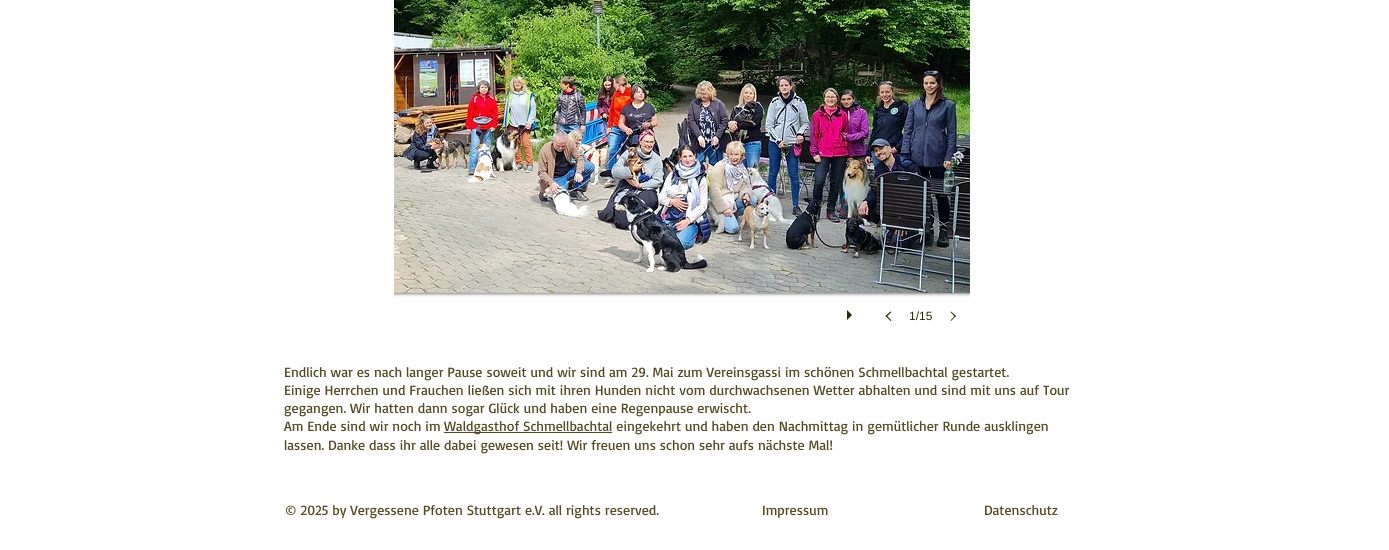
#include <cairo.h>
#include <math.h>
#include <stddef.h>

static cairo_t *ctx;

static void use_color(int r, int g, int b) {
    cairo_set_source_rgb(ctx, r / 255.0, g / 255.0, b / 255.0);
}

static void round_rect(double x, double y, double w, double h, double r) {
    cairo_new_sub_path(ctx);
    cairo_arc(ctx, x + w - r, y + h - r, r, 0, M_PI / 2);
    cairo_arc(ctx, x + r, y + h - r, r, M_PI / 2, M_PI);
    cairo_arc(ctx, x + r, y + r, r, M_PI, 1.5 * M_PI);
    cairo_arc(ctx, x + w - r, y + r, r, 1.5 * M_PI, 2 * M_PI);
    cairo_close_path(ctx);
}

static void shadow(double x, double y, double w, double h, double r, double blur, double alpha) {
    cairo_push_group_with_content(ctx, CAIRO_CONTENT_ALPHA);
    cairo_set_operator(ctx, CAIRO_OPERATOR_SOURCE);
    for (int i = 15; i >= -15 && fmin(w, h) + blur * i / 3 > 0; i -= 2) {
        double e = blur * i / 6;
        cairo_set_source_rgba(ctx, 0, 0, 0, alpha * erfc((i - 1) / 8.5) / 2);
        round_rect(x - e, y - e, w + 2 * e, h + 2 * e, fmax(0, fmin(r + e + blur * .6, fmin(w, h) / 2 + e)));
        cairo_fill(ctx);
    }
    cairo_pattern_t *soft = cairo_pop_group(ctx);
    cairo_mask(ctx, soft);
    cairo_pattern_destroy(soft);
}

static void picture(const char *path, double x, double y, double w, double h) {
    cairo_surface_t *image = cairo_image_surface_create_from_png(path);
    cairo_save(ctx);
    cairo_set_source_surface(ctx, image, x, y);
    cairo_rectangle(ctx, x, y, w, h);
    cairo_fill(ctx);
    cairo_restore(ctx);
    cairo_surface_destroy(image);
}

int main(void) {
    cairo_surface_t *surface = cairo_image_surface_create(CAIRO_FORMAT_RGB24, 1389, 550);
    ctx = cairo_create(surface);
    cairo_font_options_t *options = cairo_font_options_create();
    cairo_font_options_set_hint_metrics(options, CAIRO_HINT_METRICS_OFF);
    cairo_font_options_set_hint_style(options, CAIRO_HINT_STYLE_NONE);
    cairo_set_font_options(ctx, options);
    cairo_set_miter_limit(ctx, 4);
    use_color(255, 255, 255);
    cairo_paint(ctx);
    cairo_save(ctx);
    cairo_rectangle(ctx, 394, 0, 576, 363);
    cairo_clip(ctx);
    use_color(0, 0, 0);
    shadow(394, -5, 576, 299, 0, 1.5, 0.5);
    cairo_restore(ctx);
    picture("img1.png", 394, 0, 576, 293);
    use_color(37, 42, 4);
    cairo_new_path(ctx);
    cairo_move_to(ctx, 847, 320);
    cairo_line_to(ctx, 847, 310);
    cairo_line_to(ctx, 852, 315);
    cairo_close_path(ctx);
    cairo_fill(ctx);
    cairo_new_path(ctx);
    cairo_move_to(ctx, 885.5, 316);
    cairo_line_to(ctx, 890.5, 311.5);
    cairo_line_to(ctx, 891.5, 312);
    cairo_line_to(ctx, 886.5, 317);
    cairo_close_path(ctx);
    cairo_fill(ctx);
    cairo_new_path(ctx);
    cairo_move_to(ctx, 885.5, 316);
    cairo_line_to(ctx, 886.5, 315.5);
    cairo_line_to(ctx, 891.5, 320.5);
    cairo_line_to(ctx, 890.5, 321);
    cairo_close_path(ctx);
    cairo_fill(ctx);
    cairo_select_font_face(ctx, "Liberation Sans", CAIRO_FONT_SLANT_NORMAL, CAIRO_FONT_WEIGHT_NORMAL);
    cairo_set_font_size(ctx, 12);
    cairo_move_to(ctx, 909, 320);
    cairo_show_text(ctx, "1/15");
    cairo_new_path(ctx);
    cairo_move_to(ctx, 950.5, 312);
    cairo_line_to(ctx, 951, 311.5);
    cairo_line_to(ctx, 956, 316);
    cairo_line_to(ctx, 955, 317);
    cairo_close_path(ctx);
    cairo_fill(ctx);
    cairo_new_path(ctx);
    cairo_move_to(ctx, 950.5, 320.5);
    cairo_line_to(ctx, 955, 315.5);
    cairo_line_to(ctx, 956, 316);
    cairo_line_to(ctx, 951, 321);
    cairo_close_path(ctx);
    cairo_fill(ctx);
    cairo_select_font_face(ctx, "Basic", CAIRO_FONT_SLANT_NORMAL, CAIRO_FONT_WEIGHT_NORMAL);
    cairo_set_font_size(ctx, 14);
    use_color(81, 73, 32);
    cairo_move_to(ctx, 284, 377);
    cairo_show_text(ctx, "Endlich war es nach langer Pause soweit und wir sind am 29. Mai zum Vereinsgassi im schönen Schmellbachtal gestartet.");
    cairo_move_to(ctx, 284, 395);
    cairo_show_text(ctx, "Einige Herrchen und Frauchen ließen sich mit ihren Hunden nicht vom durchwachsenen Wetter abhalten und sind mit uns auf Tour");
    cairo_move_to(ctx, 284, 413);
    cairo_show_text(ctx, "gegangen. Wir hatten dann sogar Glück und haben eine Regenpause erwischt.");
    cairo_move_to(ctx, 284, 431);
    cairo_show_text(ctx, "Am Ende sind wir noch im");
    cairo_rectangle(ctx, 444, 432, 168, 1);
    cairo_fill(ctx);
    cairo_move_to(ctx, 444, 431);
    cairo_show_text(ctx, "Waldgasthof Schmellbachtal eingekehrt und haben den Nachmittag in gemütlicher Runde ausklingen");
    cairo_move_to(ctx, 284, 450);
    cairo_show_text(ctx, "lassen. Danke dass ihr alle dabei gewesen seit! Wir freuen uns schon sehr aufs nächste Mal!");
    cairo_move_to(ctx, 285, 515);
    cairo_show_text(ctx, "© 2025 by Vergessene Pfoten Stuttgart e.V. all rights reserved.");
    cairo_move_to(ctx, 762, 515);
    cairo_show_text(ctx, "Impressum");
    cairo_move_to(ctx, 984, 515);
    cairo_show_text(ctx, "Datenschutz");
    cairo_surface_write_to_png(surface, "result.png");
    cairo_font_options_destroy(options);
    cairo_destroy(ctx);
    cairo_surface_destroy(surface);
    return 0;
}
